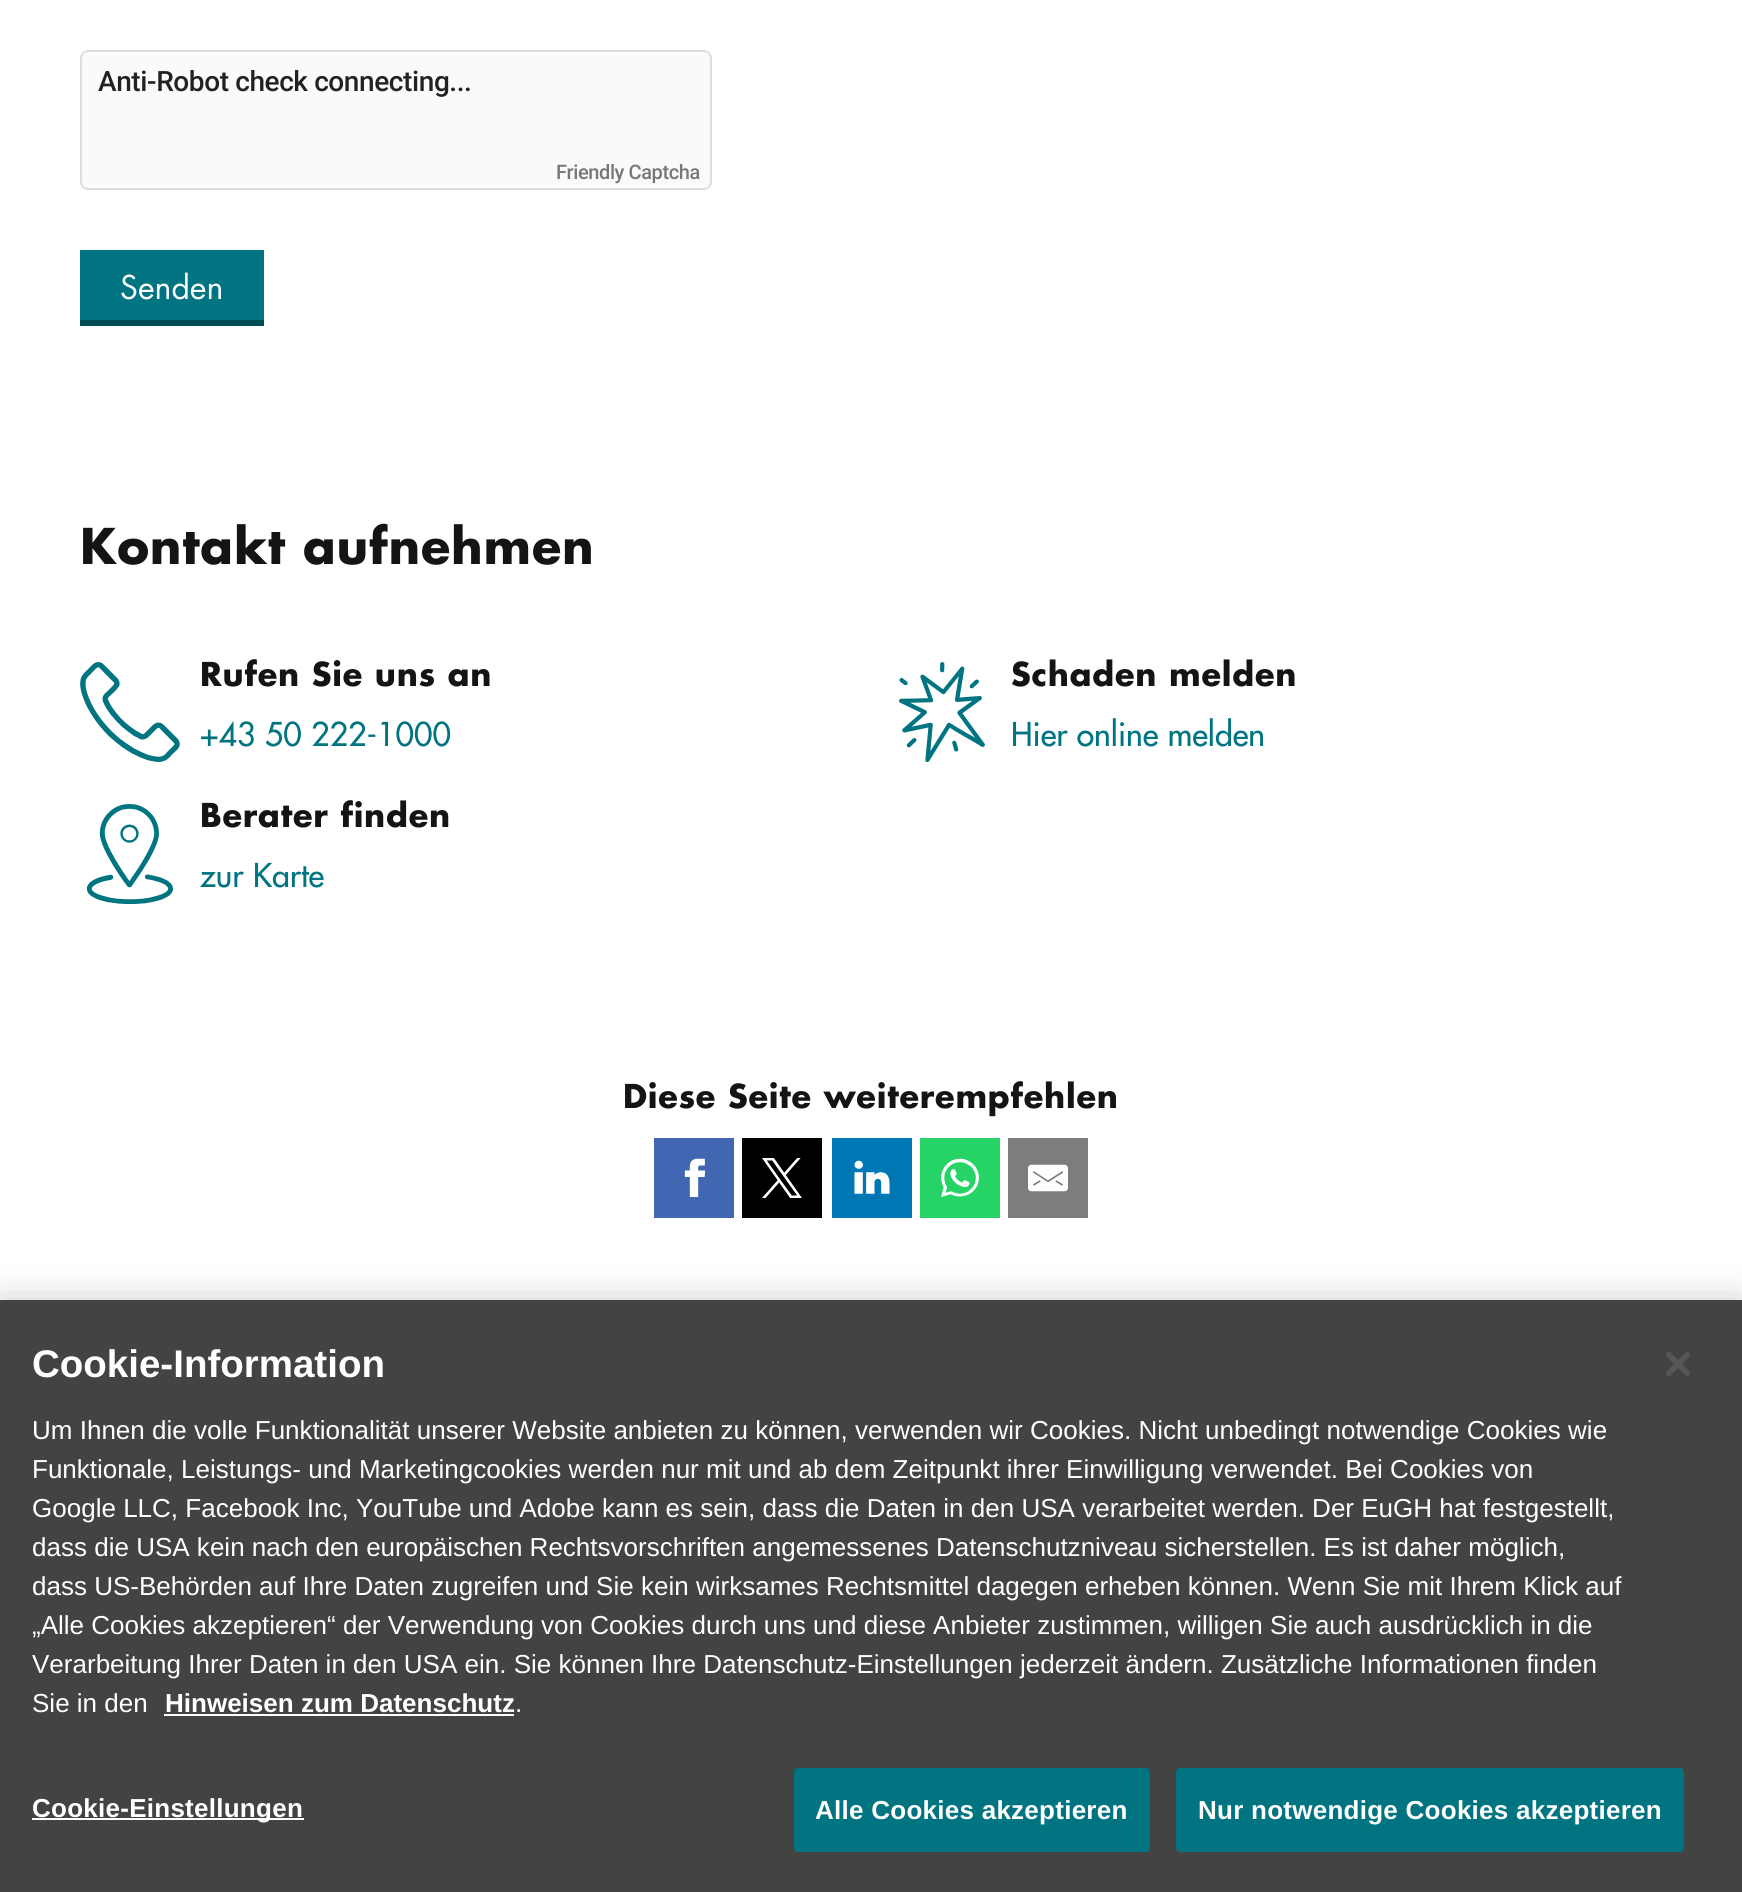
#include <cairo.h>
#include <math.h>
#include <stddef.h>

static cairo_t *ctx;

static void use_color(int r, int g, int b) {
    cairo_set_source_rgb(ctx, r / 255.0, g / 255.0, b / 255.0);
}

static void spaced_text(double x, double y, const char *s, double letter, double word) {
    cairo_move_to(ctx, x, y);
    while (*s) {
        char ch[5] = {0};
        int n = 0;
        do ch[n++] = *s++; while ((*s & 0xC0) == 0x80);
        cairo_show_text(ctx, ch);
        cairo_rel_move_to(ctx, letter + word * (*ch == ' '), 0);
    }
}

static void round_rect(double x, double y, double w, double h, double r) {
    cairo_new_sub_path(ctx);
    cairo_arc(ctx, x + w - r, y + h - r, r, 0, M_PI / 2);
    cairo_arc(ctx, x + r, y + h - r, r, M_PI / 2, M_PI);
    cairo_arc(ctx, x + r, y + r, r, M_PI, 1.5 * M_PI);
    cairo_arc(ctx, x + w - r, y + r, r, 1.5 * M_PI, 2 * M_PI);
    cairo_close_path(ctx);
}

static void shadow(double x, double y, double w, double h, double r, double blur, double alpha) {
    cairo_push_group_with_content(ctx, CAIRO_CONTENT_ALPHA);
    cairo_set_operator(ctx, CAIRO_OPERATOR_SOURCE);
    for (int i = 15; i >= -15 && fmin(w, h) + blur * i / 3 > 0; i -= 2) {
        double e = blur * i / 6;
        cairo_set_source_rgba(ctx, 0, 0, 0, alpha * erfc((i - 1) / 8.5) / 2);
        round_rect(x - e, y - e, w + 2 * e, h + 2 * e, fmax(0, fmin(r + e + blur * .6, fmin(w, h) / 2 + e)));
        cairo_fill(ctx);
    }
    cairo_pattern_t *soft = cairo_pop_group(ctx);
    cairo_mask(ctx, soft);
    cairo_pattern_destroy(soft);
}

static void picture(const char *path, double x, double y, double w, double h) {
    cairo_surface_t *image = cairo_image_surface_create_from_png(path);
    cairo_save(ctx);
    cairo_set_source_surface(ctx, image, x, y);
    cairo_rectangle(ctx, x, y, w, h);
    cairo_fill(ctx);
    cairo_restore(ctx);
    cairo_surface_destroy(image);
}

int main(void) {
    cairo_surface_t *surface = cairo_image_surface_create(CAIRO_FORMAT_RGB24, 1742, 1892);
    ctx = cairo_create(surface);
    cairo_font_options_t *options = cairo_font_options_create();
    cairo_font_options_set_hint_metrics(options, CAIRO_HINT_METRICS_OFF);
    cairo_font_options_set_hint_style(options, CAIRO_HINT_STYLE_NONE);
    cairo_set_font_options(ctx, options);
    cairo_set_miter_limit(ctx, 4);
    use_color(255, 255, 255);
    cairo_paint(ctx);
    use_color(250, 250, 250);
    round_rect(81, 51, 630, 138, 7);
    cairo_fill_preserve(ctx);
    use_color(221, 221, 221);
    cairo_stroke(ctx);
    cairo_select_font_face(ctx, "Roboto Medium", CAIRO_FONT_SLANT_NORMAL, CAIRO_FONT_WEIGHT_NORMAL);
    cairo_set_font_size(ctx, 28);
    use_color(34, 34, 34);
    spaced_text(98, 91, "Anti-Robot check connecting...", -0.4, 0);
    cairo_set_font_size(ctx, 20);
    use_color(119, 119, 119);
    spaced_text(556, 179, "Friendly Captcha", -0.4, 0);
    use_color(0, 116, 128);
    cairo_rectangle(ctx, 80, 250, 184, 70);
    cairo_fill(ctx);
    use_color(0, 77, 86);
    cairo_rectangle(ctx, 80, 320, 184, 6);
    cairo_fill(ctx);
    cairo_select_font_face(ctx, "Futura", CAIRO_FONT_SLANT_NORMAL, CAIRO_FONT_WEIGHT_NORMAL);
    cairo_set_font_size(ctx, 32);
    use_color(255, 255, 255);
    cairo_move_to(ctx, 120, 299);
    cairo_show_text(ctx, "Senden");
    cairo_select_font_face(ctx, "Futura", CAIRO_FONT_SLANT_NORMAL, CAIRO_FONT_WEIGHT_BOLD);
    cairo_set_font_size(ctx, 48);
    use_color(20, 20, 18);
    spaced_text(80, 564, "Kontakt aufnehmen", 0.8, 0);
    picture("img1.png", 80, 662, 100, 100);
    cairo_set_font_size(ctx, 32);
    spaced_text(200, 686, "Rufen Sie uns an", 0.8, 0);
    cairo_select_font_face(ctx, "Futura Medium", CAIRO_FONT_SLANT_NORMAL, CAIRO_FONT_WEIGHT_NORMAL);
    use_color(0, 116, 128);
    cairo_move_to(ctx, 200, 746);
    cairo_show_text(ctx, "+43 50 222-1000");
    picture("img2.png", 899, 662, 86, 100);
    cairo_select_font_face(ctx, "Futura", CAIRO_FONT_SLANT_NORMAL, CAIRO_FONT_WEIGHT_BOLD);
    use_color(20, 20, 18);
    spaced_text(1011, 686, "Schaden melden", 0.8, 0);
    cairo_select_font_face(ctx, "Futura Medium", CAIRO_FONT_SLANT_NORMAL, CAIRO_FONT_WEIGHT_NORMAL);
    use_color(0, 116, 128);
    cairo_move_to(ctx, 1011, 746);
    cairo_show_text(ctx, "Hier online melden");
    picture("img3.png", 86, 804, 87, 100);
    cairo_select_font_face(ctx, "Futura", CAIRO_FONT_SLANT_NORMAL, CAIRO_FONT_WEIGHT_BOLD);
    use_color(20, 20, 18);
    spaced_text(200, 827, "Berater finden", 0.8, 0);
    cairo_select_font_face(ctx, "Futura Medium", CAIRO_FONT_SLANT_NORMAL, CAIRO_FONT_WEIGHT_NORMAL);
    use_color(0, 116, 128);
    cairo_move_to(ctx, 200, 887);
    cairo_show_text(ctx, "zur Karte");
    cairo_select_font_face(ctx, "Futura", CAIRO_FONT_SLANT_NORMAL, CAIRO_FONT_WEIGHT_BOLD);
    use_color(20, 20, 18);
    spaced_text(623, 1108, "Diese Seite weiterempfehlen", 0.8, 0);
    use_color(66, 103, 178);
    cairo_rectangle(ctx, 654, 1138, 80, 80);
    cairo_fill(ctx);
    picture("img4.png", 684, 1158, 22, 39);
    use_color(0, 0, 0);
    cairo_rectangle(ctx, 742, 1138, 80, 80);
    cairo_fill(ctx);
    picture("img5.png", 762, 1158, 40, 40);
    use_color(0, 119, 181);
    cairo_rectangle(ctx, 832, 1138, 80, 80);
    cairo_fill(ctx);
    picture("img6.png", 854, 1160, 36, 34);
    use_color(37, 211, 102);
    cairo_rectangle(ctx, 920, 1138, 80, 80);
    cairo_fill(ctx);
    picture("img7.png", 941, 1158, 38, 39);
    use_color(125, 125, 125);
    cairo_rectangle(ctx, 1008, 1138, 80, 80);
    cairo_fill(ctx);
    picture("img8.png", 1028, 1164, 40, 28);
    use_color(0, 0, 0);
    shadow(0, 1300, 1742, 592, 0, 18, 0.2);
    use_color(67, 67, 65);
    cairo_rectangle(ctx, 0, 1300, 1742, 592);
    cairo_fill(ctx);
    cairo_select_font_face(ctx, "Liberation Sans", CAIRO_FONT_SLANT_NORMAL, CAIRO_FONT_WEIGHT_BOLD);
    cairo_set_font_size(ctx, 38.5);
    use_color(255, 255, 255);
    cairo_move_to(ctx, 32, 1377);
    cairo_show_text(ctx, "Cookie-Information");
    cairo_select_font_face(ctx, "Liberation Sans", CAIRO_FONT_SLANT_NORMAL, CAIRO_FONT_WEIGHT_NORMAL);
    cairo_set_font_size(ctx, 26.02);
    cairo_move_to(ctx, 32, 1439);
    cairo_show_text(ctx, "Um Ihnen die volle Funktionalität unserer Website anbieten zu können, verwenden wir Cookies. Nicht unbedingt notwendige Cookies wie");
    cairo_move_to(ctx, 32, 1478);
    cairo_show_text(ctx, "Funktionale, Leistungs- und Marketingcookies werden nur mit und ab dem Zeitpunkt ihrer Einwilligung verwendet. Bei Cookies von");
    cairo_move_to(ctx, 32, 1517);
    cairo_show_text(ctx, "Google LLC, Facebook Inc, YouTube und Adobe kann es sein, dass die Daten in den USA verarbeitet werden. Der EuGH hat festgestellt,");
    cairo_move_to(ctx, 32, 1556);
    cairo_show_text(ctx, "dass die USA kein nach den europäischen Rechtsvorschriften angemessenes Datenschutzniveau sicherstellen. Es ist daher möglich,");
    cairo_move_to(ctx, 32, 1595);
    cairo_show_text(ctx, "dass US-Behörden auf Ihre Daten zugreifen und Sie kein wirksames Rechtsmittel dagegen erheben können. Wenn Sie mit Ihrem Klick auf");
    cairo_move_to(ctx, 32, 1634);
    cairo_show_text(ctx, "„Alle Cookies akzeptieren“ der Verwendung von Cookies durch uns und diese Anbieter zustimmen, willigen Sie auch ausdrücklich in die");
    cairo_move_to(ctx, 32, 1673);
    cairo_show_text(ctx, "Verarbeitung Ihrer Daten in den USA ein. Sie können Ihre Datenschutz-Einstellungen jederzeit ändern. Zusätzliche Informationen finden");
    cairo_move_to(ctx, 32, 1712);
    cairo_show_text(ctx, "Sie in den");
    cairo_select_font_face(ctx, "Liberation Sans", CAIRO_FONT_SLANT_NORMAL, CAIRO_FONT_WEIGHT_BOLD);
    cairo_move_to(ctx, 165, 1712);
    cairo_show_text(ctx, "Hinweisen zum Datenschutz");
    cairo_rectangle(ctx, 164, 1714, 350, 2);
    cairo_fill(ctx);
    cairo_select_font_face(ctx, "Liberation Sans", CAIRO_FONT_SLANT_NORMAL, CAIRO_FONT_WEIGHT_NORMAL);
    cairo_move_to(ctx, 515, 1712);
    cairo_show_text(ctx, ".");
    cairo_rectangle(ctx, 32, 1818, 272, 2);
    cairo_fill(ctx);
    cairo_select_font_face(ctx, "Liberation Sans", CAIRO_FONT_SLANT_NORMAL, CAIRO_FONT_WEIGHT_BOLD);
    spaced_text(32, 1817, "Cookie-Einstellungen", 0.25, 0);
    use_color(0, 116, 128);
    round_rect(795, 1769, 354, 82, 3);
    cairo_fill_preserve(ctx);
    cairo_stroke(ctx);
    use_color(255, 255, 255);
    spaced_text(815, 1819, "Alle Cookies akzeptieren", 0.25, 0);
    use_color(0, 116, 128);
    round_rect(1177, 1769, 506, 82, 3);
    cairo_fill_preserve(ctx);
    cairo_stroke(ctx);
    use_color(255, 255, 255);
    spaced_text(1198, 1819, "Nur notwendige Cookies akzeptieren", 0.25, 0);
    picture("img9.png", 1666, 1352, 24, 24);
    cairo_surface_write_to_png(surface, "result.png");
    cairo_font_options_destroy(options);
    cairo_destroy(ctx);
    cairo_surface_destroy(surface);
    return 0;
}
